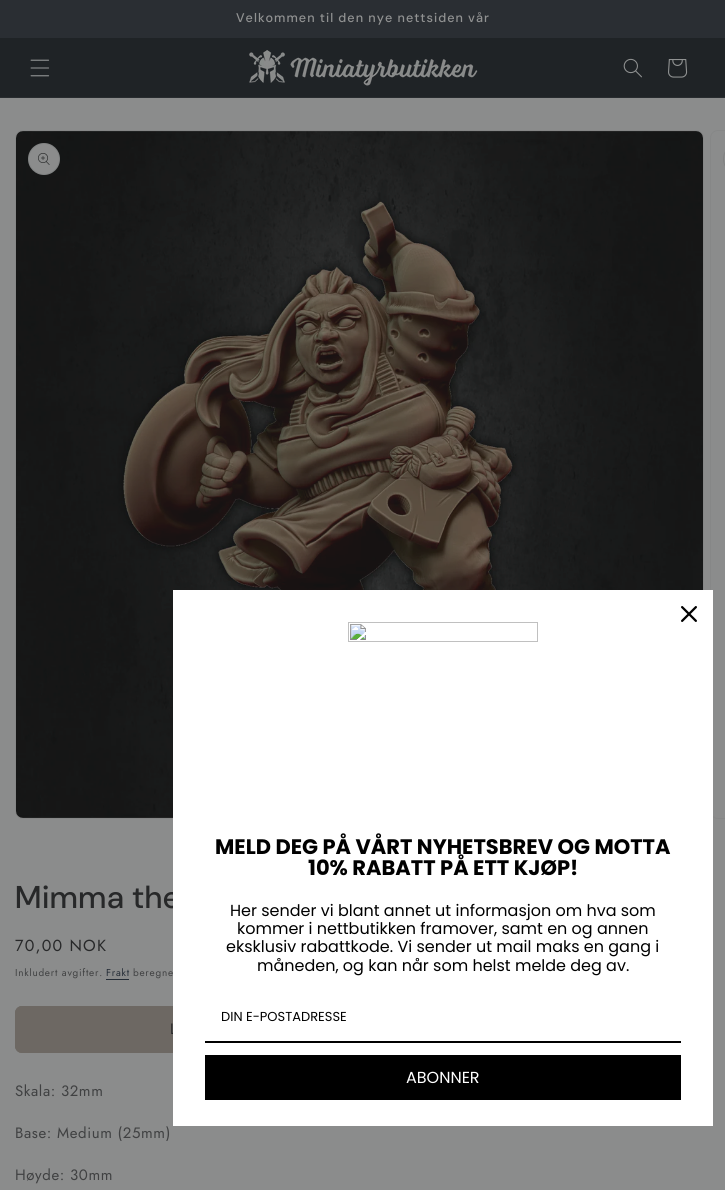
#include <cairo.h>
#include <math.h>
#include <stddef.h>

static cairo_t *ctx;

static void use_color(int r, int g, int b) {
    cairo_set_source_rgb(ctx, r / 255.0, g / 255.0, b / 255.0);
}

static void spaced_text(double x, double y, const char *s, double letter, double word) {
    cairo_move_to(ctx, x, y);
    while (*s) {
        char ch[5] = {0};
        int n = 0;
        do ch[n++] = *s++; while ((*s & 0xC0) == 0x80);
        cairo_show_text(ctx, ch);
        cairo_rel_move_to(ctx, letter + word * (*ch == ' '), 0);
    }
}

static void round_rect(double x, double y, double w, double h, double r) {
    cairo_new_sub_path(ctx);
    cairo_arc(ctx, x + w - r, y + h - r, r, 0, M_PI / 2);
    cairo_arc(ctx, x + r, y + h - r, r, M_PI / 2, M_PI);
    cairo_arc(ctx, x + r, y + r, r, M_PI, 1.5 * M_PI);
    cairo_arc(ctx, x + w - r, y + r, r, 1.5 * M_PI, 2 * M_PI);
    cairo_close_path(ctx);
}

static void picture(const char *path, double x, double y, double w, double h) {
    cairo_surface_t *image = cairo_image_surface_create_from_png(path);
    cairo_save(ctx);
    cairo_set_source_surface(ctx, image, x, y);
    cairo_rectangle(ctx, x, y, w, h);
    cairo_fill(ctx);
    cairo_restore(ctx);
    cairo_surface_destroy(image);
}

int main(void) {
    cairo_surface_t *surface = cairo_image_surface_create(CAIRO_FORMAT_RGB24, 725, 1190);
    ctx = cairo_create(surface);
    cairo_font_options_t *options = cairo_font_options_create();
    cairo_font_options_set_hint_metrics(options, CAIRO_HINT_METRICS_OFF);
    cairo_font_options_set_hint_style(options, CAIRO_HINT_STYLE_NONE);
    cairo_set_font_options(ctx, options);
    cairo_set_miter_limit(ctx, 4);
    use_color(139, 140, 140);
    cairo_paint(ctx);
    use_color(42, 46, 51);
    cairo_rectangle(ctx, 0, 0, 725, 38);
    cairo_fill(ctx);
    cairo_select_font_face(ctx, "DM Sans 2 Medium", CAIRO_FONT_SLANT_NORMAL, CAIRO_FONT_WEIGHT_NORMAL);
    cairo_set_font_size(ctx, 12.6);
    use_color(145, 146, 146);
    spaced_text(236, 22, "Velkommen til den nye nettsiden vår", 1, 0);
    use_color(31, 35, 38);
    cairo_rectangle(ctx, 0, 38, 725, 59);
    cairo_fill(ctx);
    use_color(40, 44, 47);
    cairo_rectangle(ctx, 0, 97, 725, 1);
    cairo_fill(ctx);
    picture("img1.png", 30, 59, 20, 18);
    picture("img2.png", 249, 50, 229, 36);
    picture("img3.png", 623, 58, 19, 20);
    picture("img4.png", 668, 59, 20, 19);
    round_rect(15.5, 130.5, 688, 688, 7.5);
    use_color(134, 135, 135);
    cairo_set_line_width(ctx, 1);
    cairo_stroke(ctx);
    picture("img5.png", 16, 131, 687, 687);
    use_color(139, 140, 140);
    cairo_arc(ctx, 44, 159, 16, 0, 2 * M_PI);
    cairo_fill(ctx);
    cairo_arc(ctx, 44, 159, 15.5, 0, 2 * M_PI);
    cairo_set_source_rgba(ctx, 0.153, 0.157, 0.161, 0.1);
    cairo_stroke(ctx);
    picture("img6.png", 38, 153, 12, 12);
    round_rect(710.5, 130.5, 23, 688, 7.5);
    use_color(134, 135, 135);
    cairo_stroke(ctx);
    round_rect(723.5, 143.5, 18, 31, 15.5);
    use_color(129, 130, 130);
    cairo_stroke(ctx);
    cairo_select_font_face(ctx, "DM Sans Medium", CAIRO_FONT_SLANT_NORMAL, CAIRO_FONT_WEIGHT_NORMAL);
    cairo_set_font_size(ctx, 31.5);
    use_color(39, 40, 41);
    spaced_text(15, 908, "Mimma the", 0.6, 0);
    cairo_select_font_face(ctx, "Jost", CAIRO_FONT_SLANT_NORMAL, CAIRO_FONT_WEIGHT_NORMAL);
    cairo_set_font_size(ctx, 16);
    spaced_text(15, 951, "70,00 NOK", 1.25, 0);
    cairo_set_font_size(ctx, 10);
    use_color(64, 65, 66);
    spaced_text(15, 976, "Inkludert avgifter.", 0.75, 0);
    use_color(36, 44, 54);
    spaced_text(106, 976, "Frakt", 0.75, 0);
    cairo_rectangle(ctx, 106, 979, 23, 1);
    cairo_fill(ctx);
    use_color(64, 65, 66);
    spaced_text(133, 976, "beregne", 0.75, 0);
    use_color(109, 104, 99);
    round_rect(15, 1006, 440, 47, 7);
    cairo_fill(ctx);
    round_rect(15.5, 1006.5, 439, 46, 6.5);
    cairo_stroke(ctx);
    cairo_set_font_size(ctx, 15);
    use_color(39, 40, 41);
    spaced_text(170, 1034, "L", 1, 0);
    use_color(64, 65, 66);
    spaced_text(15, 1096, "Skala: 32mm", 0.6, 0);
    spaced_text(15, 1138, "Base: Medium (25mm)", 0.6, 0);
    spaced_text(15, 1180, "Høyde: 30mm", 0.6, 0);
    use_color(255, 255, 255);
    cairo_rectangle(ctx, 173, 590, 540, 536);
    cairo_fill(ctx);
    picture("img7.png", 681, 606, 16, 16);
    picture("img8.png", 348, 622, 190, 20);
    cairo_select_font_face(ctx, "Poppins", CAIRO_FONT_SLANT_NORMAL, CAIRO_FONT_WEIGHT_BOLD);
    cairo_set_font_size(ctx, 21);
    use_color(0, 0, 0);
    cairo_move_to(ctx, 215, 854);
    cairo_show_text(ctx, "MELD DEG PÅ VÅRT NYHETSBREV OG MOTTA");
    cairo_move_to(ctx, 308, 875);
    cairo_show_text(ctx, "10% RABATT PÅ ETT KJØP!");
    cairo_select_font_face(ctx, "Poppins", CAIRO_FONT_SLANT_NORMAL, CAIRO_FONT_WEIGHT_NORMAL);
    cairo_set_font_size(ctx, 16);
    cairo_move_to(ctx, 230, 916);
    cairo_show_text(ctx, "Her sender vi blant annet ut informasjon om hva som");
    cairo_move_to(ctx, 237, 934);
    cairo_show_text(ctx, "kommer i nettbutikken framover, samt en og annen");
    cairo_move_to(ctx, 226, 952);
    cairo_show_text(ctx, "eksklusiv rabattkode. Vi sender ut mail maks en gang i");
    cairo_move_to(ctx, 257, 971);
    cairo_show_text(ctx, "måneden, og kan når som helst melde deg av.");
    cairo_rectangle(ctx, 205, 1041, 476, 2);
    cairo_fill(ctx);
    cairo_set_font_size(ctx, 13);
    cairo_move_to(ctx, 221, 1021);
    cairo_show_text(ctx, "DIN E-POSTADRESSE");
    cairo_rectangle(ctx, 205, 1055, 476, 45);
    cairo_fill(ctx);
    cairo_set_font_size(ctx, 16);
    use_color(255, 255, 255);
    cairo_move_to(ctx, 406, 1083);
    cairo_show_text(ctx, "ABONNER");
    cairo_surface_write_to_png(surface, "result.png");
    cairo_font_options_destroy(options);
    cairo_destroy(ctx);
    cairo_surface_destroy(surface);
    return 0;
}
